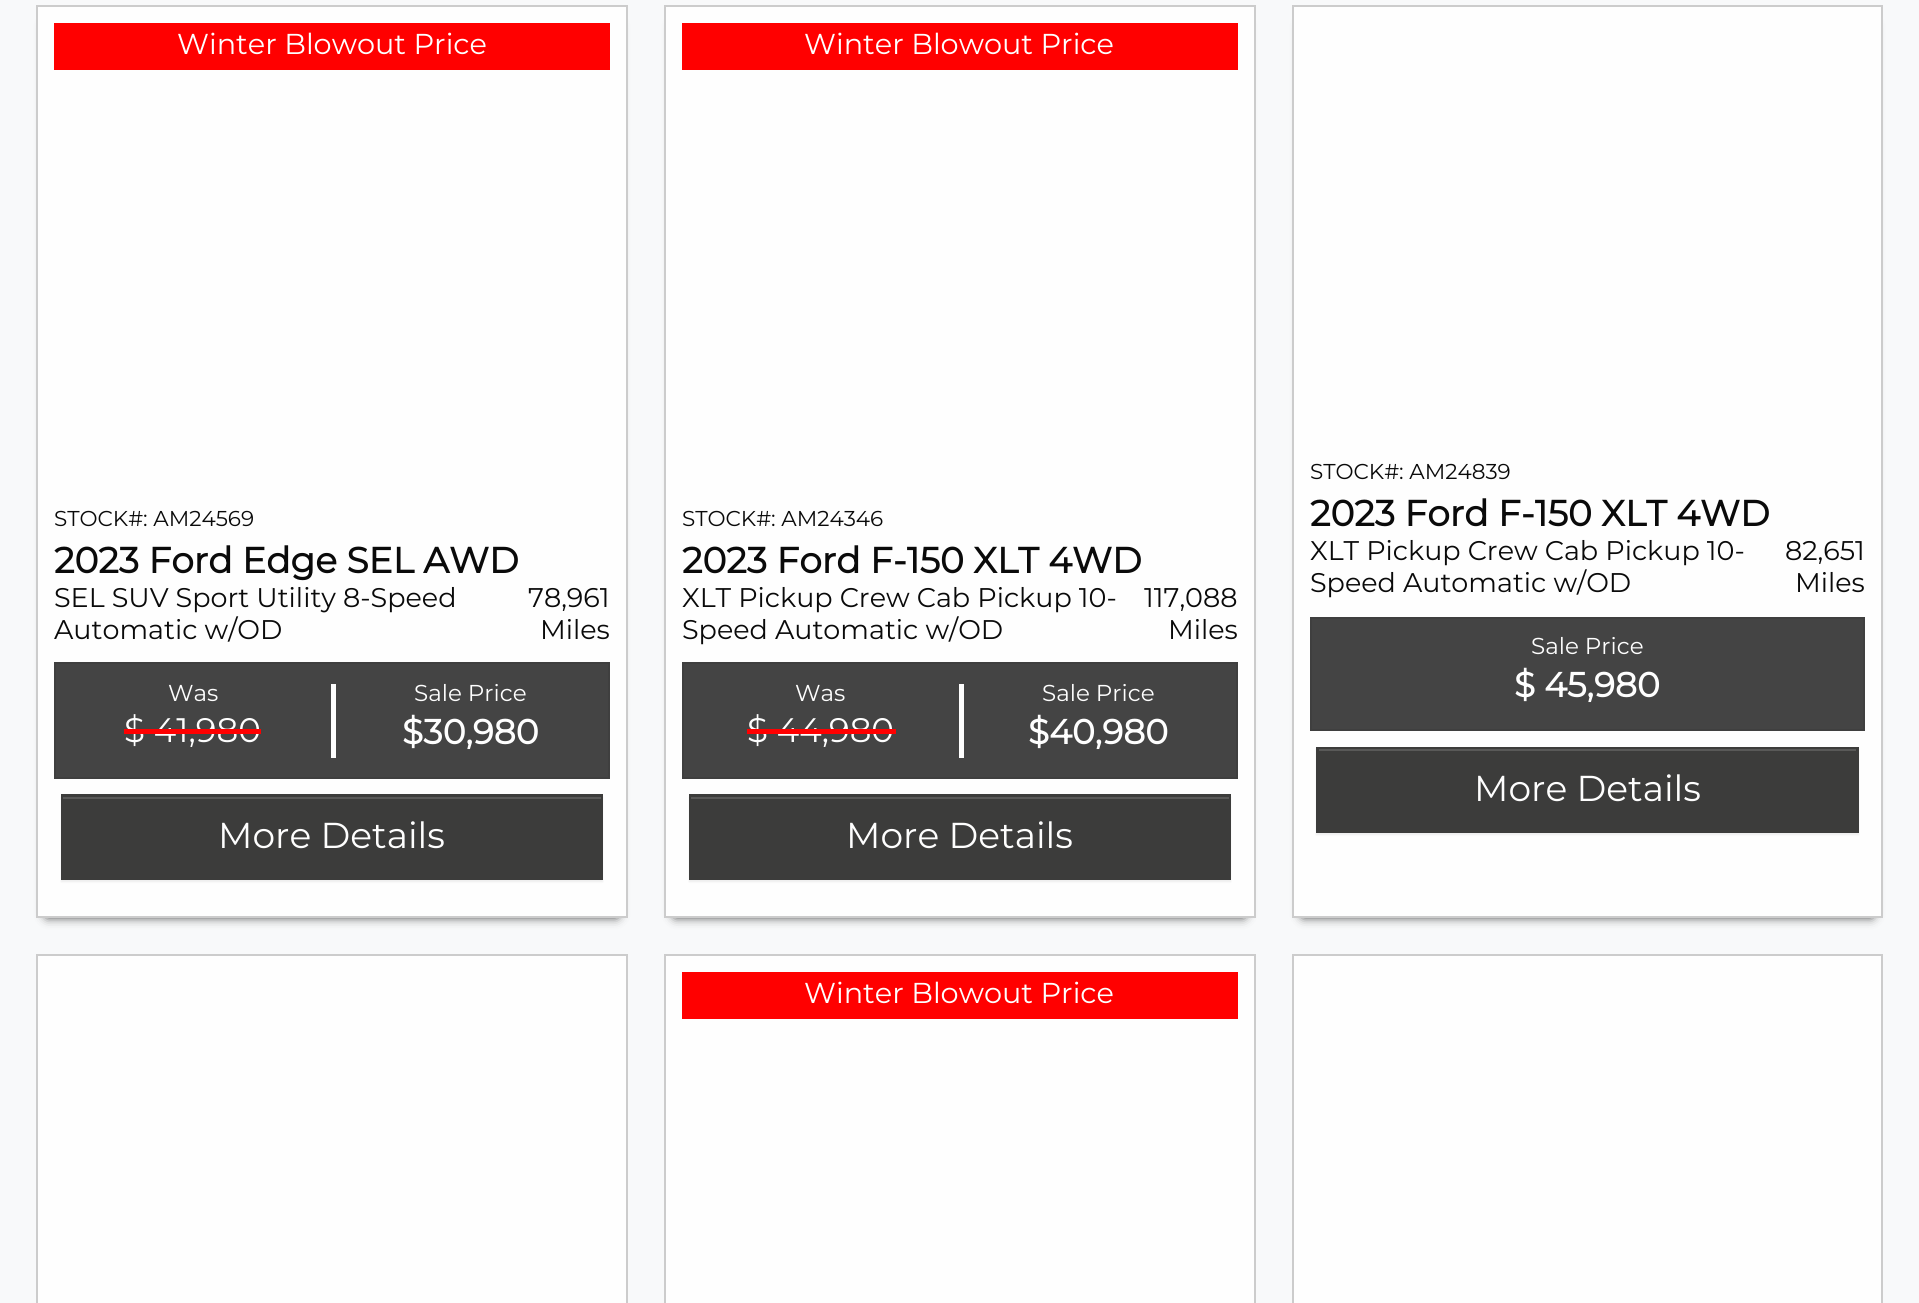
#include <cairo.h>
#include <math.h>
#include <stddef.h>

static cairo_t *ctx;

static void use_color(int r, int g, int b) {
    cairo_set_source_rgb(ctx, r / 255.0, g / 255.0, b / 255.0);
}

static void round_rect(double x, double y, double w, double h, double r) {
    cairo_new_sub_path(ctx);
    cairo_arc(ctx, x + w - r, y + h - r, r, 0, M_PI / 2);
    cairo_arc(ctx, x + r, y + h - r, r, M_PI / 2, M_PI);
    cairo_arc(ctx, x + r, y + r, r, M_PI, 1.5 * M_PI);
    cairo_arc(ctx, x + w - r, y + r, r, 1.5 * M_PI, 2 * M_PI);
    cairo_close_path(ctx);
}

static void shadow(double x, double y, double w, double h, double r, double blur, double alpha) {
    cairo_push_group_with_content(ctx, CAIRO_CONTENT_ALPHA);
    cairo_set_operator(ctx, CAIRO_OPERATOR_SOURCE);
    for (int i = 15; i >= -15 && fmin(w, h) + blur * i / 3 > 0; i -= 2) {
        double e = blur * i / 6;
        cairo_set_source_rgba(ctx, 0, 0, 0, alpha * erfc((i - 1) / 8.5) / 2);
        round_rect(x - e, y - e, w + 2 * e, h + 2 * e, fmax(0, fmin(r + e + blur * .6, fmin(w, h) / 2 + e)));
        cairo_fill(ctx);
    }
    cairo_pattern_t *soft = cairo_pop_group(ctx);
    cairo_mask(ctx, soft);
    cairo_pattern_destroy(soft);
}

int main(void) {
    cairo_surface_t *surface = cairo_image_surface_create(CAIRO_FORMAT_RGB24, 1919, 1303);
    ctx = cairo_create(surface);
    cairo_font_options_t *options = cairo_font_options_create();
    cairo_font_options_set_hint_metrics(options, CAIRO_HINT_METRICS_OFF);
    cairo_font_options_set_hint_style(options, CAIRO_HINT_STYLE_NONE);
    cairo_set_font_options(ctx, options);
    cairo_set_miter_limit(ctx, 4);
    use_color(248, 249, 250);
    cairo_paint(ctx);
    use_color(10, 10, 10);
    shadow(47, 25, 570, 891, 0, 5.5, 1);
    use_color(254, 254, 254);
    cairo_rectangle(ctx, 37, 6, 590, 911);
    cairo_fill_preserve(ctx);
    use_color(204, 204, 204);
    cairo_stroke(ctx);
    use_color(255, 0, 0);
    cairo_rectangle(ctx, 54, 23, 556, 47);
    cairo_fill(ctx);
    cairo_select_font_face(ctx, "Montserrat Thin", CAIRO_FONT_SLANT_NORMAL, CAIRO_FONT_WEIGHT_NORMAL);
    cairo_set_font_size(ctx, 28.75);
    use_color(254, 254, 254);
    cairo_move_to(ctx, 177, 54);
    cairo_show_text(ctx, "Winter Blowout Price");
    cairo_set_font_size(ctx, 21.5);
    use_color(10, 10, 10);
    cairo_move_to(ctx, 54, 526);
    cairo_show_text(ctx, "STOCK#: AM24569");
    cairo_select_font_face(ctx, "Montserrat", CAIRO_FONT_SLANT_NORMAL, CAIRO_FONT_WEIGHT_BOLD);
    cairo_set_font_size(ctx, 36);
    cairo_move_to(ctx, 54, 573);
    cairo_show_text(ctx, "2023 Ford Edge SEL AWD");
    cairo_select_font_face(ctx, "Montserrat Thin", CAIRO_FONT_SLANT_NORMAL, CAIRO_FONT_WEIGHT_NORMAL);
    cairo_set_font_size(ctx, 27);
    cairo_move_to(ctx, 54, 607);
    cairo_show_text(ctx, "SEL SUV Sport Utility 8-Speed");
    cairo_move_to(ctx, 54, 639);
    cairo_show_text(ctx, "Automatic w/OD");
    cairo_move_to(ctx, 528, 607);
    cairo_show_text(ctx, "78,961");
    cairo_move_to(ctx, 540, 639);
    cairo_show_text(ctx, "Miles");
    use_color(68, 68, 68);
    cairo_rectangle(ctx, 55, 663, 554, 115);
    cairo_fill_preserve(ctx);
    use_color(63, 63, 63);
    cairo_stroke(ctx);
    use_color(254, 254, 254);
    cairo_rectangle(ctx, 331, 684, 5, 74);
    cairo_fill(ctx);
    cairo_set_font_size(ctx, 23);
    cairo_move_to(ctx, 168, 701);
    cairo_show_text(ctx, "Was");
    cairo_set_font_size(ctx, 34);
    cairo_move_to(ctx, 124, 742);
    cairo_show_text(ctx, "$ 41,980");
    use_color(255, 0, 0);
    cairo_rectangle(ctx, 124, 729, 137, 5);
    cairo_fill(ctx);
    cairo_set_font_size(ctx, 23);
    use_color(254, 254, 254);
    cairo_move_to(ctx, 414, 701);
    cairo_show_text(ctx, "Sale Price");
    cairo_select_font_face(ctx, "Montserrat", CAIRO_FONT_SLANT_NORMAL, CAIRO_FONT_WEIGHT_BOLD);
    cairo_set_font_size(ctx, 34.5);
    cairo_move_to(ctx, 402, 744);
    cairo_show_text(ctx, "$30,980");
    use_color(10, 10, 10);
    shadow(61, 797, 542, 85, 0, 1, 0.07);
    use_color(60, 60, 59);
    cairo_rectangle(ctx, 61, 794, 542, 86);
    cairo_fill(ctx);
    use_color(89, 89, 88);
    cairo_rectangle(ctx, 63, 797, 538, 2);
    cairo_fill(ctx);
    cairo_select_font_face(ctx, "Montserrat Thin", CAIRO_FONT_SLANT_NORMAL, CAIRO_FONT_WEIGHT_NORMAL);
    cairo_set_font_size(ctx, 36);
    use_color(254, 254, 254);
    cairo_move_to(ctx, 218, 848);
    cairo_show_text(ctx, "More Details");
    use_color(10, 10, 10);
    shadow(675, 25, 569, 891, 0, 5.5, 1);
    use_color(254, 254, 254);
    cairo_rectangle(ctx, 665, 6, 590, 911);
    cairo_fill_preserve(ctx);
    use_color(204, 204, 204);
    cairo_stroke(ctx);
    use_color(255, 0, 0);
    cairo_rectangle(ctx, 682, 23, 556, 47);
    cairo_fill(ctx);
    cairo_set_font_size(ctx, 28.75);
    use_color(254, 254, 254);
    cairo_move_to(ctx, 804, 54);
    cairo_show_text(ctx, "Winter Blowout Price");
    cairo_set_font_size(ctx, 21.5);
    use_color(10, 10, 10);
    cairo_move_to(ctx, 682, 526);
    cairo_show_text(ctx, "STOCK#: AM24346");
    cairo_select_font_face(ctx, "Montserrat", CAIRO_FONT_SLANT_NORMAL, CAIRO_FONT_WEIGHT_BOLD);
    cairo_set_font_size(ctx, 36);
    cairo_move_to(ctx, 682, 573);
    cairo_show_text(ctx, "2023 Ford F-150 XLT 4WD");
    cairo_select_font_face(ctx, "Montserrat Thin", CAIRO_FONT_SLANT_NORMAL, CAIRO_FONT_WEIGHT_NORMAL);
    cairo_set_font_size(ctx, 27);
    cairo_move_to(ctx, 682, 607);
    cairo_show_text(ctx, "XLT Pickup Crew Cab Pickup 10-");
    cairo_move_to(ctx, 682, 639);
    cairo_show_text(ctx, "Speed Automatic w/OD");
    cairo_move_to(ctx, 1144, 607);
    cairo_show_text(ctx, "117,088");
    cairo_move_to(ctx, 1168, 639);
    cairo_show_text(ctx, "Miles");
    use_color(68, 68, 68);
    cairo_rectangle(ctx, 683, 663, 554, 115);
    cairo_fill_preserve(ctx);
    use_color(63, 63, 63);
    cairo_stroke(ctx);
    use_color(254, 254, 254);
    cairo_rectangle(ctx, 959, 684, 5, 74);
    cairo_fill(ctx);
    cairo_set_font_size(ctx, 23);
    cairo_move_to(ctx, 795, 701);
    cairo_show_text(ctx, "Was");
    cairo_set_font_size(ctx, 34);
    cairo_move_to(ctx, 747, 742);
    cairo_show_text(ctx, "$ 44,980");
    use_color(255, 0, 0);
    cairo_rectangle(ctx, 747, 729, 149, 5);
    cairo_fill(ctx);
    cairo_set_font_size(ctx, 23);
    use_color(254, 254, 254);
    cairo_move_to(ctx, 1042, 701);
    cairo_show_text(ctx, "Sale Price");
    cairo_select_font_face(ctx, "Montserrat", CAIRO_FONT_SLANT_NORMAL, CAIRO_FONT_WEIGHT_BOLD);
    cairo_set_font_size(ctx, 34.5);
    cairo_move_to(ctx, 1028, 744);
    cairo_show_text(ctx, "$40,980");
    use_color(10, 10, 10);
    shadow(689, 797, 542, 85, 0, 1, 0.07);
    use_color(60, 60, 59);
    cairo_rectangle(ctx, 689, 794, 542, 86);
    cairo_fill(ctx);
    use_color(89, 89, 88);
    cairo_rectangle(ctx, 691, 797, 538, 2);
    cairo_fill(ctx);
    cairo_select_font_face(ctx, "Montserrat Thin", CAIRO_FONT_SLANT_NORMAL, CAIRO_FONT_WEIGHT_NORMAL);
    cairo_set_font_size(ctx, 36);
    use_color(254, 254, 254);
    cairo_move_to(ctx, 846, 848);
    cairo_show_text(ctx, "More Details");
    use_color(10, 10, 10);
    shadow(1303, 25, 569, 891, 0, 5.5, 1);
    use_color(254, 254, 254);
    cairo_rectangle(ctx, 1293, 6, 589, 911);
    cairo_fill_preserve(ctx);
    use_color(204, 204, 204);
    cairo_stroke(ctx);
    cairo_set_font_size(ctx, 21.5);
    use_color(10, 10, 10);
    cairo_move_to(ctx, 1310, 479);
    cairo_show_text(ctx, "STOCK#: AM24839");
    cairo_select_font_face(ctx, "Montserrat", CAIRO_FONT_SLANT_NORMAL, CAIRO_FONT_WEIGHT_BOLD);
    cairo_set_font_size(ctx, 36);
    cairo_move_to(ctx, 1310, 526);
    cairo_show_text(ctx, "2023 Ford F-150 XLT 4WD");
    cairo_select_font_face(ctx, "Montserrat Thin", CAIRO_FONT_SLANT_NORMAL, CAIRO_FONT_WEIGHT_NORMAL);
    cairo_set_font_size(ctx, 27);
    cairo_move_to(ctx, 1310, 560);
    cairo_show_text(ctx, "XLT Pickup Crew Cab Pickup 10-");
    cairo_move_to(ctx, 1310, 592);
    cairo_show_text(ctx, "Speed Automatic w/OD");
    cairo_move_to(ctx, 1785, 560);
    cairo_show_text(ctx, "82,651");
    cairo_move_to(ctx, 1795, 592);
    cairo_show_text(ctx, "Miles");
    use_color(68, 68, 68);
    cairo_rectangle(ctx, 1311, 618, 553, 112);
    cairo_fill_preserve(ctx);
    use_color(63, 63, 63);
    cairo_stroke(ctx);
    cairo_set_font_size(ctx, 23);
    use_color(254, 254, 254);
    cairo_move_to(ctx, 1531, 654);
    cairo_show_text(ctx, "Sale Price");
    cairo_select_font_face(ctx, "Montserrat", CAIRO_FONT_SLANT_NORMAL, CAIRO_FONT_WEIGHT_BOLD);
    cairo_set_font_size(ctx, 34.5);
    cairo_move_to(ctx, 1514, 697);
    cairo_show_text(ctx, "$ 45,980");
    use_color(10, 10, 10);
    shadow(1316, 749, 543, 86, 0, 1, 0.07);
    use_color(60, 60, 59);
    cairo_rectangle(ctx, 1316, 747, 543, 86);
    cairo_fill(ctx);
    use_color(89, 89, 88);
    cairo_rectangle(ctx, 1319, 749, 537, 2);
    cairo_fill(ctx);
    cairo_select_font_face(ctx, "Montserrat Thin", CAIRO_FONT_SLANT_NORMAL, CAIRO_FONT_WEIGHT_NORMAL);
    cairo_set_font_size(ctx, 36);
    use_color(254, 254, 254);
    cairo_move_to(ctx, 1474, 801);
    cairo_show_text(ctx, "More Details");
    cairo_rectangle(ctx, 37, 955, 590, 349);
    cairo_fill_preserve(ctx);
    use_color(204, 204, 204);
    cairo_stroke(ctx);
    use_color(254, 254, 254);
    cairo_rectangle(ctx, 665, 955, 590, 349);
    cairo_fill_preserve(ctx);
    use_color(204, 204, 204);
    cairo_stroke(ctx);
    use_color(255, 0, 0);
    cairo_rectangle(ctx, 682, 972, 556, 47);
    cairo_fill(ctx);
    cairo_set_font_size(ctx, 28.75);
    use_color(254, 254, 254);
    cairo_move_to(ctx, 804, 1003);
    cairo_show_text(ctx, "Winter Blowout Price");
    cairo_rectangle(ctx, 1293, 955, 589, 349);
    cairo_fill_preserve(ctx);
    use_color(204, 204, 204);
    cairo_stroke(ctx);
    cairo_surface_write_to_png(surface, "result.png");
    cairo_font_options_destroy(options);
    cairo_destroy(ctx);
    cairo_surface_destroy(surface);
    return 0;
}
